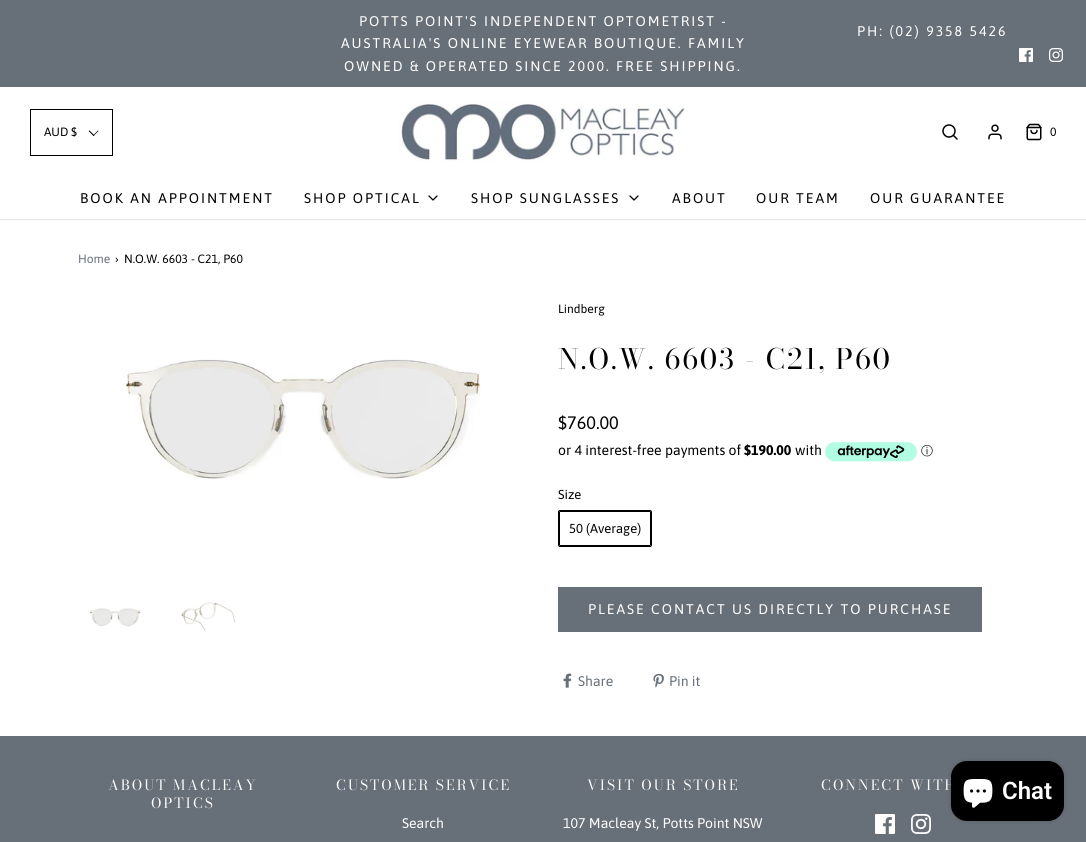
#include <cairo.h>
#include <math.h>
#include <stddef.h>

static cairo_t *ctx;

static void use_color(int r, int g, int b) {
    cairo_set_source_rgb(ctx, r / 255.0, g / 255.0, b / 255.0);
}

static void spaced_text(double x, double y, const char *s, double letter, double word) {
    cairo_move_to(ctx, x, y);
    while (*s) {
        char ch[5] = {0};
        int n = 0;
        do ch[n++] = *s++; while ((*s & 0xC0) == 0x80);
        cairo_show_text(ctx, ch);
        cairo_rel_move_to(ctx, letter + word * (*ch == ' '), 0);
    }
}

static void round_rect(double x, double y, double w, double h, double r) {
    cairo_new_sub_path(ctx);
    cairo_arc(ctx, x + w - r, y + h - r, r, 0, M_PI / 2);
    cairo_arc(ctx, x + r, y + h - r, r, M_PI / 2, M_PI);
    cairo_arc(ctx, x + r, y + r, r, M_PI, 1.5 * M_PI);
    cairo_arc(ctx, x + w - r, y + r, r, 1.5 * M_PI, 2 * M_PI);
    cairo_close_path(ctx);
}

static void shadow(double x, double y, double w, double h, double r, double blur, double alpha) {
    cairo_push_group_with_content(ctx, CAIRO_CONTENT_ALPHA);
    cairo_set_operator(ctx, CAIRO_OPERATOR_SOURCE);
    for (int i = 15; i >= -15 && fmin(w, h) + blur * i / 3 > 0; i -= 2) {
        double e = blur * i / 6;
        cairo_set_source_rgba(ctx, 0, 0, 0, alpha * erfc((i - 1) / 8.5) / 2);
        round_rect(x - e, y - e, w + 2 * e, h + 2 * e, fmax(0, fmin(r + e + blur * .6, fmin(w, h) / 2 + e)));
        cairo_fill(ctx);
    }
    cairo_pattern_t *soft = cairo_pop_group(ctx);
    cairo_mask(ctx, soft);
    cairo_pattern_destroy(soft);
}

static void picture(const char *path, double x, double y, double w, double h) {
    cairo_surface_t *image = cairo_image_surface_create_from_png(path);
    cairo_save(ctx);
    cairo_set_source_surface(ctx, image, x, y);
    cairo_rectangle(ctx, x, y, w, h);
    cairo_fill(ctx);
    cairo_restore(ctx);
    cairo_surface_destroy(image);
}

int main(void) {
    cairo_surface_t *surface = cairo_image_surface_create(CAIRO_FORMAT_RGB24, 1086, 842);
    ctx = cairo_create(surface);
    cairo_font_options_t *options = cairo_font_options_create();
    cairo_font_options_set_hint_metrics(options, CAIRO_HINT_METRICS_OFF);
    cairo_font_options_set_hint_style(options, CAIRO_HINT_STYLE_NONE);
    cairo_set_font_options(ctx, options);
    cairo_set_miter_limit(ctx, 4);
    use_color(255, 255, 255);
    cairo_paint(ctx);
    use_color(103, 111, 120);
    cairo_rectangle(ctx, 0, 0, 1086, 87);
    cairo_fill(ctx);
    cairo_select_font_face(ctx, "Asap", CAIRO_FONT_SLANT_NORMAL, CAIRO_FONT_WEIGHT_NORMAL);
    cairo_set_font_size(ctx, 14);
    use_color(255, 255, 255);
    spaced_text(359, 26, "POTTS POINT'S INDEPENDENT OPTOMETRIST -", 2, 0);
    spaced_text(341, 48, "AUSTRALIA'S ONLINE EYEWEAR BOUTIQUE. FAMILY", 2, 0);
    spaced_text(344, 71, "OWNED & OPERATED SINCE 2000. FREE SHIPPING.", 2, 0);
    spaced_text(857, 36, "PH: (02) 9358 5426", 2, 0);
    picture("img1.png", 1019, 48, 14, 14);
    picture("img2.png", 1049, 48, 14, 14);
    use_color(230, 230, 230);
    cairo_rectangle(ctx, 0, 219, 1086, 1);
    cairo_fill(ctx);
    cairo_rectangle(ctx, 30.5, 109.5, 82, 46);
    use_color(0, 0, 0);
    cairo_set_line_width(ctx, 1);
    cairo_stroke(ctx);
    cairo_set_font_size(ctx, 12);
    cairo_move_to(ctx, 44, 136);
    cairo_show_text(ctx, "AUD $");
    cairo_new_path(ctx);
    cairo_move_to(ctx, 98, 130.5);
    cairo_line_to(ctx, 98.5, 131);
    cairo_line_to(ctx, 93.5, 136);
    cairo_line_to(ctx, 93, 135.5);
    cairo_close_path(ctx);
    cairo_fill(ctx);
    cairo_new_path(ctx);
    cairo_move_to(ctx, 89.5, 130.5);
    cairo_line_to(ctx, 94.5, 135.5);
    cairo_line_to(ctx, 93.5, 136);
    cairo_line_to(ctx, 88.5, 131);
    cairo_close_path(ctx);
    cairo_fill(ctx);
    picture("img3.png", 398, 102, 287, 60);
    cairo_arc(ctx, 949, 131, 6, 0, 2 * M_PI);
    cairo_set_line_width(ctx, 1.5);
    cairo_stroke(ctx);
    cairo_new_path(ctx);
    cairo_move_to(ctx, 957, 139);
    cairo_line_to(ctx, 953.5, 135.5);
    cairo_set_line_cap(ctx, CAIRO_LINE_CAP_ROUND);
    cairo_set_line_join(ctx, CAIRO_LINE_JOIN_ROUND);
    cairo_stroke(ctx);
    picture("img4.png", 988, 124, 14, 16);
    picture("img5.png", 1026, 123, 16, 18);
    cairo_move_to(ctx, 1050, 136);
    cairo_show_text(ctx, "0");
    cairo_set_font_size(ctx, 14);
    spaced_text(80, 203, "BOOK AN APPOINTMENT", 2, 0);
    spaced_text(304, 203, "SHOP OPTICAL", 2, 0);
    cairo_new_path(ctx);
    cairo_move_to(ctx, 429, 196);
    cairo_line_to(ctx, 433, 200);
    cairo_line_to(ctx, 437, 196);
    cairo_set_line_width(ctx, 1.3);
    cairo_stroke(ctx);
    spaced_text(471, 203, "SHOP SUNGLASSES", 2, 0);
    cairo_new_path(ctx);
    cairo_move_to(ctx, 630, 196);
    cairo_line_to(ctx, 634, 200);
    cairo_line_to(ctx, 638, 196);
    cairo_stroke(ctx);
    spaced_text(672, 203, "ABOUT", 2, 0);
    spaced_text(756, 203, "OUR TEAM", 2, 0);
    spaced_text(870, 203, "OUR GUARANTEE", 2, 0);
    cairo_set_font_size(ctx, 12);
    use_color(103, 111, 120);
    cairo_move_to(ctx, 78, 263);
    cairo_show_text(ctx, "Home");
    use_color(0, 0, 0);
    cairo_move_to(ctx, 115, 263);
    cairo_show_text(ctx, "›");
    cairo_move_to(ctx, 124, 263);
    cairo_show_text(ctx, "N.O.W. 6603 - C21, P60");
    picture("img6.png", 126, 359, 355, 120);
    picture("img7.png", 89, 608, 52, 19);
    picture("img8.png", 181, 602, 54, 29);
    cairo_move_to(ctx, 558, 313);
    cairo_show_text(ctx, "Lindberg");
    cairo_select_font_face(ctx, "Bodoni Moda", CAIRO_FONT_SLANT_NORMAL, CAIRO_FONT_WEIGHT_NORMAL);
    cairo_set_font_size(ctx, 28);
    spaced_text(558, 369, "N.O.W. 6603 - C21, P60", 2, 0);
    cairo_select_font_face(ctx, "Asap", CAIRO_FONT_SLANT_NORMAL, CAIRO_FONT_WEIGHT_NORMAL);
    cairo_set_font_size(ctx, 18);
    cairo_move_to(ctx, 558, 429);
    cairo_show_text(ctx, "$760.00");
    cairo_set_font_size(ctx, 14);
    cairo_move_to(ctx, 558, 455);
    cairo_show_text(ctx, "or 4 interest-free payments of");
    cairo_select_font_face(ctx, "Asap", CAIRO_FONT_SLANT_NORMAL, CAIRO_FONT_WEIGHT_BOLD);
    cairo_move_to(ctx, 744, 455);
    cairo_show_text(ctx, "$190.00");
    cairo_select_font_face(ctx, "Asap", CAIRO_FONT_SLANT_NORMAL, CAIRO_FONT_WEIGHT_NORMAL);
    cairo_move_to(ctx, 795, 455);
    cairo_show_text(ctx, "with");
    picture("img9.png", 825, 442, 92, 20);
    cairo_select_font_face(ctx, "WenQuanYi Zen Hei Medium", CAIRO_FONT_SLANT_NORMAL, CAIRO_FONT_WEIGHT_NORMAL);
    cairo_set_font_size(ctx, 12);
    cairo_move_to(ctx, 921, 455);
    cairo_show_text(ctx, "ⓘ");
    cairo_select_font_face(ctx, "Asap", CAIRO_FONT_SLANT_NORMAL, CAIRO_FONT_WEIGHT_NORMAL);
    cairo_set_font_size(ctx, 13);
    cairo_move_to(ctx, 558, 499);
    cairo_show_text(ctx, "Size");
    round_rect(559.5, 511.5, 91, 34, 0.5);
    cairo_set_line_width(ctx, 1);
    cairo_set_line_cap(ctx, CAIRO_LINE_CAP_BUTT);
    cairo_set_line_join(ctx, CAIRO_LINE_JOIN_MITER);
    cairo_stroke(ctx);
    round_rect(558.5, 510.5, 93, 36, 1.5);
    cairo_stroke(ctx);
    cairo_move_to(ctx, 569, 533);
    cairo_show_text(ctx, "50 (Average)");
    use_color(103, 111, 120);
    cairo_rectangle(ctx, 558, 587, 424, 45);
    cairo_fill(ctx);
    cairo_set_font_size(ctx, 14);
    use_color(255, 255, 255);
    spaced_text(588, 614, "PLEASE CONTACT US DIRECTLY TO PURCHASE", 2, 0);
    picture("img10.png", 563, 673, 9, 15);
    use_color(103, 111, 120);
    cairo_move_to(ctx, 578, 686);
    cairo_show_text(ctx, "Share");
    picture("img11.png", 653, 673, 11, 15);
    cairo_move_to(ctx, 669, 686);
    cairo_show_text(ctx, "Pin it");
    cairo_rectangle(ctx, 0, 736, 1086, 106);
    cairo_fill(ctx);
    cairo_select_font_face(ctx, "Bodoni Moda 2", CAIRO_FONT_SLANT_NORMAL, CAIRO_FONT_WEIGHT_NORMAL);
    use_color(255, 255, 255);
    spaced_text(108, 790, "ABOUT MACLEAY", 2, 0);
    spaced_text(151, 808, "OPTICS", 2, 0);
    spaced_text(336, 790, "CUSTOMER SERVICE", 2, 0);
    cairo_select_font_face(ctx, "Asap", CAIRO_FONT_SLANT_NORMAL, CAIRO_FONT_WEIGHT_NORMAL);
    cairo_move_to(ctx, 402, 828);
    cairo_show_text(ctx, "Search");
    cairo_select_font_face(ctx, "Bodoni Moda 2", CAIRO_FONT_SLANT_NORMAL, CAIRO_FONT_WEIGHT_NORMAL);
    spaced_text(587, 790, "VISIT OUR STORE", 2, 0);
    cairo_select_font_face(ctx, "Asap", CAIRO_FONT_SLANT_NORMAL, CAIRO_FONT_WEIGHT_NORMAL);
    cairo_move_to(ctx, 563, 828);
    cairo_show_text(ctx, "107 Macleay St, Potts Point NSW");
    cairo_select_font_face(ctx, "Bodoni Moda 2", CAIRO_FONT_SLANT_NORMAL, CAIRO_FONT_WEIGHT_NORMAL);
    spaced_text(821, 790, "CONNECT WITH", 2, 0);
    picture("img12.png", 875, 814, 20, 20);
    picture("img13.png", 911, 814, 20, 20);
    use_color(0, 0, 0);
    shadow(951, 761, 113, 60, 16, 2.5, 0.15);
    use_color(0, 0, 0);
    round_rect(951, 761, 113, 60, 16);
    cairo_fill(ctx);
    picture("img14.png", 963, 779, 30, 29);
    cairo_select_font_face(ctx, "Roboto SemiBold", CAIRO_FONT_SLANT_NORMAL, CAIRO_FONT_WEIGHT_NORMAL);
    cairo_set_font_size(ctx, 24);
    use_color(255, 255, 255);
    cairo_move_to(ctx, 1002, 799);
    cairo_show_text(ctx, "Chat");
    cairo_surface_write_to_png(surface, "result.png");
    cairo_font_options_destroy(options);
    cairo_destroy(ctx);
    cairo_surface_destroy(surface);
    return 0;
}
